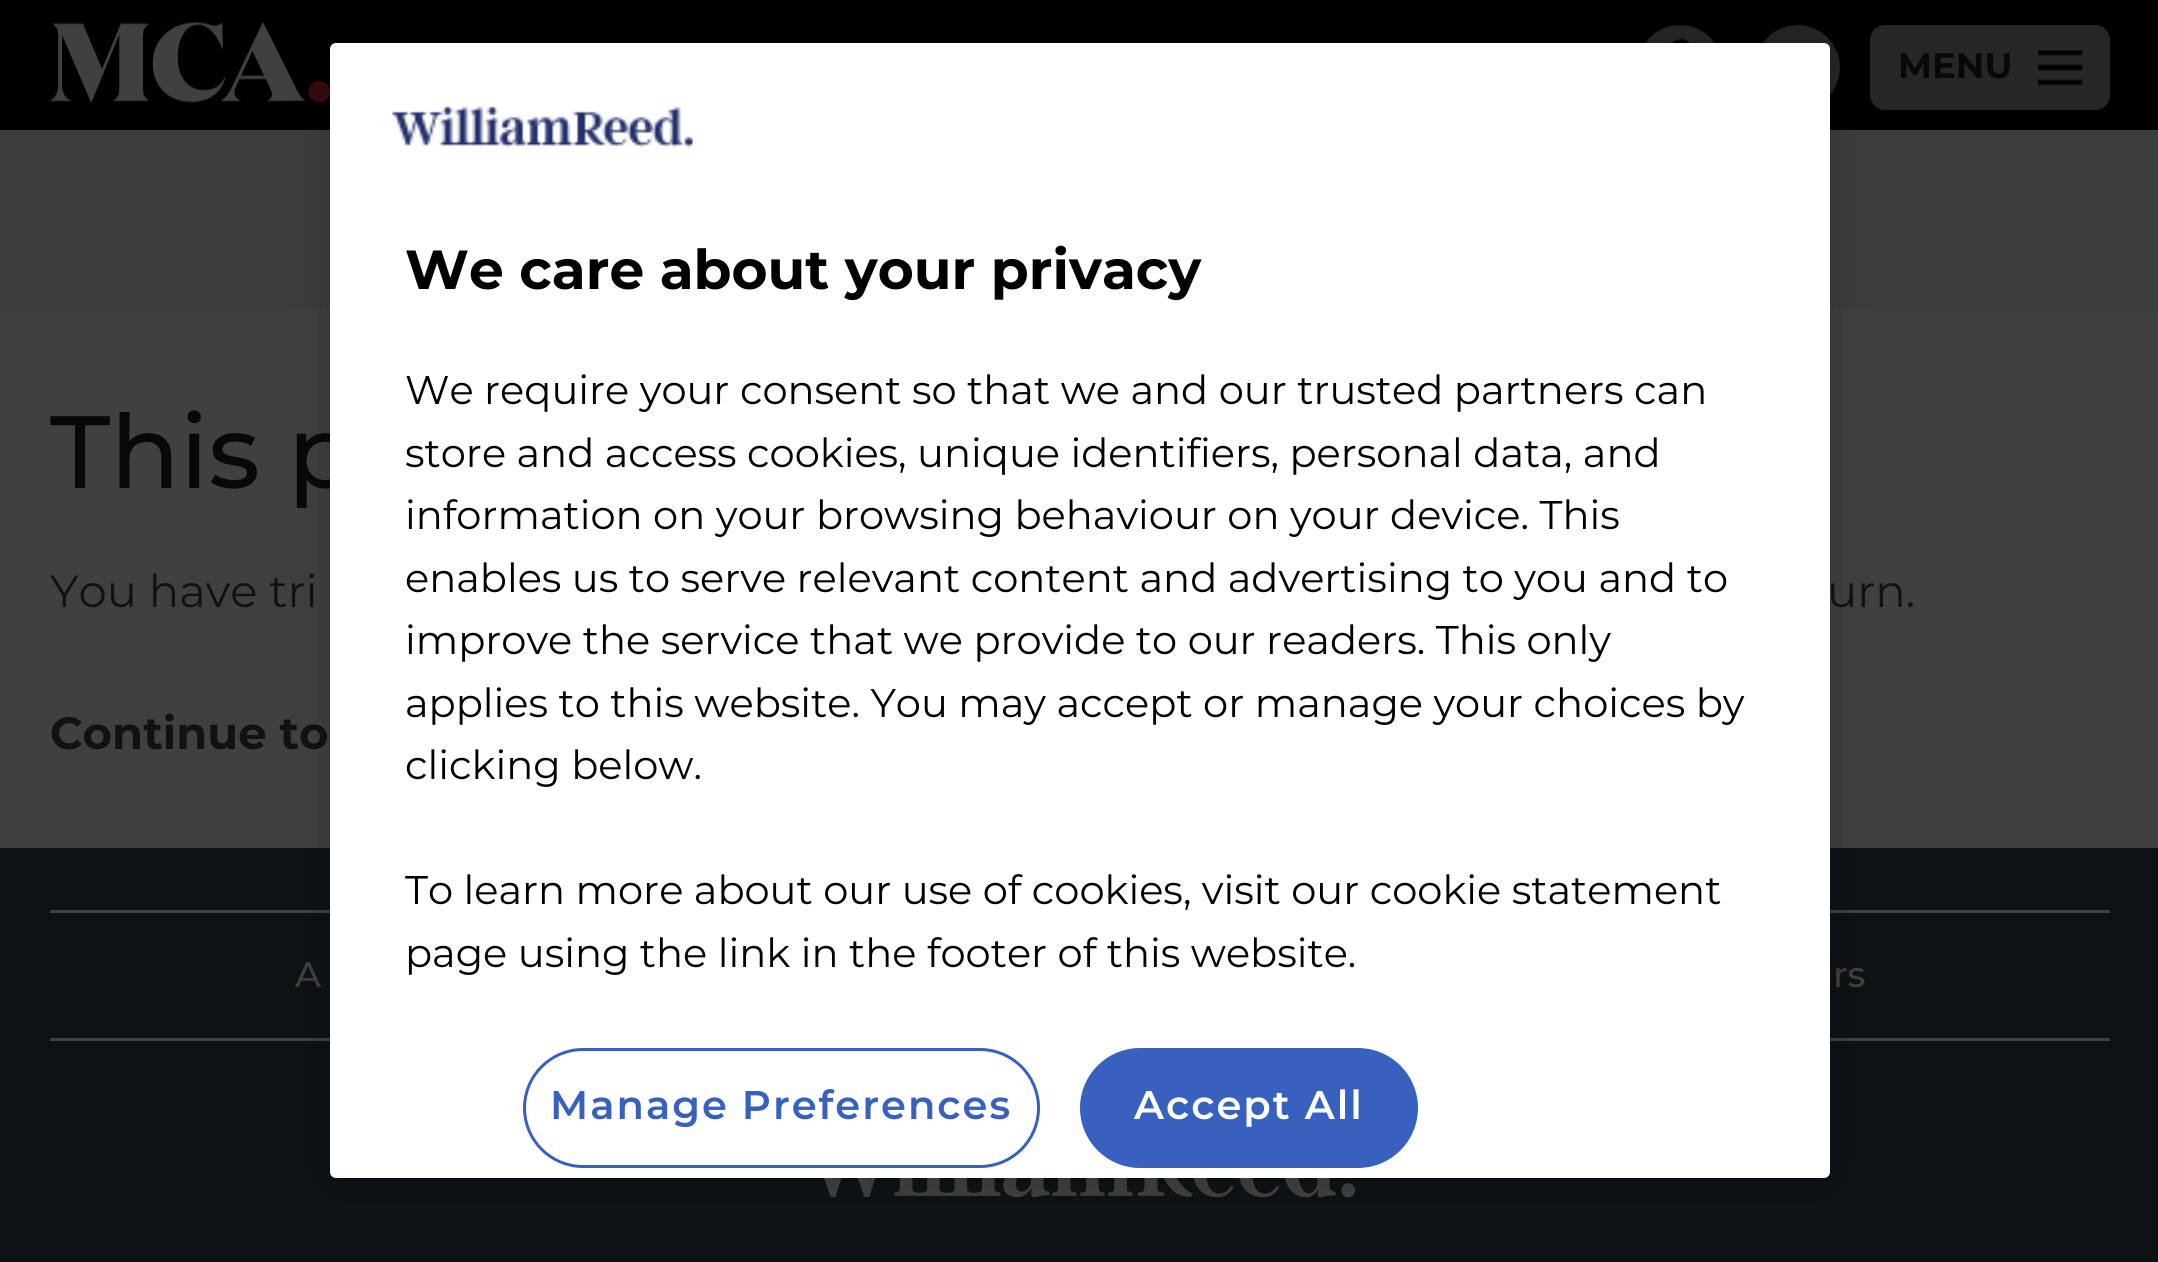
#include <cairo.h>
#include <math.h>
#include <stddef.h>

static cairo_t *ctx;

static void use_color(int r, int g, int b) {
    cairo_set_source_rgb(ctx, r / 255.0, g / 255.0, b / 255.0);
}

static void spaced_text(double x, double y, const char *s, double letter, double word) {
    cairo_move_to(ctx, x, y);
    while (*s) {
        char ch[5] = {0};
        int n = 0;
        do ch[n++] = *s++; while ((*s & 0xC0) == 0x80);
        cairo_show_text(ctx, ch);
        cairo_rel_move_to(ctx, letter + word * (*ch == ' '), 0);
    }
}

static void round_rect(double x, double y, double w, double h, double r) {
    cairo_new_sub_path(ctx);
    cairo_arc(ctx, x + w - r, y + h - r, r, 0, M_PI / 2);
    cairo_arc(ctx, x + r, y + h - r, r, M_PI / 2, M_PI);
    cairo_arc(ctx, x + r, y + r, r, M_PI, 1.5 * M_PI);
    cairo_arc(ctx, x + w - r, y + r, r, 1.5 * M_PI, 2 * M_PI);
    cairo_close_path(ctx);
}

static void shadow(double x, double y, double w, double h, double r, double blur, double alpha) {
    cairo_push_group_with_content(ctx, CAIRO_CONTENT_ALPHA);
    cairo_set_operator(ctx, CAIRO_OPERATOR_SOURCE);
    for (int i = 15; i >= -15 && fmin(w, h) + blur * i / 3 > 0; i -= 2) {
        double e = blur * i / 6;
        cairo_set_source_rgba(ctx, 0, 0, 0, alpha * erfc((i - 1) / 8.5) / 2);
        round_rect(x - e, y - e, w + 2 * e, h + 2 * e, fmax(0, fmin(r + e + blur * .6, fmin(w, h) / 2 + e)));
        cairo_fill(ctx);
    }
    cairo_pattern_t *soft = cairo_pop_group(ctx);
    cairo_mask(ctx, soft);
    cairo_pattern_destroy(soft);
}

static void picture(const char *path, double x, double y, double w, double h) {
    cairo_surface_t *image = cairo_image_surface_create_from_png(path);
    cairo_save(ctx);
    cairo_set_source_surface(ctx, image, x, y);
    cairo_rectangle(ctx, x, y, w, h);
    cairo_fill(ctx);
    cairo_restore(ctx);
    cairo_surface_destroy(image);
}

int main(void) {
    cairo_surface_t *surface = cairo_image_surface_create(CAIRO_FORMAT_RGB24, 2158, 1262);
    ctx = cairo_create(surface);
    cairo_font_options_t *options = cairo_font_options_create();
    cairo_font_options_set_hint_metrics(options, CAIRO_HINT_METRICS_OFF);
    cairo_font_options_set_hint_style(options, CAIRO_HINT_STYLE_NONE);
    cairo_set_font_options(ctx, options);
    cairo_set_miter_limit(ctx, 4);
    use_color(64, 64, 64);
    cairo_paint(ctx);
    use_color(0, 0, 0);
    cairo_rectangle(ctx, 0, 0, 2158, 130);
    cairo_fill(ctx);
    picture("img1.png", 50, 22, 280, 81);
    picture("img2.png", 1645, 24, 70, 19);
    picture("img3.png", 1762, 24, 78, 71);
    use_color(38, 38, 38);
    round_rect(1870, 25, 240, 85, 15);
    cairo_fill(ctx);
    cairo_select_font_face(ctx, "Montserrat", CAIRO_FONT_SLANT_NORMAL, CAIRO_FONT_WEIGHT_BOLD);
    cairo_set_font_size(ctx, 35.5);
    use_color(8, 8, 8);
    cairo_move_to(ctx, 1898, 78);
    cairo_show_text(ctx, "MENU");
    picture("img4.png", 2038, 50, 45, 36);
    use_color(60, 61, 61);
    cairo_rectangle(ctx, 0, 130, 2158, 180);
    cairo_fill(ctx);
    cairo_select_font_face(ctx, "Montserrat Medium", CAIRO_FONT_SLANT_NORMAL, CAIRO_FONT_WEIGHT_NORMAL);
    cairo_set_font_size(ctx, 102.5);
    use_color(8, 8, 8);
    cairo_move_to(ctx, 50, 488);
    cairo_show_text(ctx, "This p");
    cairo_select_font_face(ctx, "Montserrat", CAIRO_FONT_SLANT_NORMAL, CAIRO_FONT_WEIGHT_NORMAL);
    cairo_set_font_size(ctx, 45);
    use_color(17, 17, 17);
    cairo_move_to(ctx, 50, 607);
    cairo_show_text(ctx, "You have tri");
    cairo_move_to(ctx, 1827, 607);
    cairo_show_text(ctx, "urn.");
    cairo_select_font_face(ctx, "Montserrat", CAIRO_FONT_SLANT_NORMAL, CAIRO_FONT_WEIGHT_BOLD);
    cairo_move_to(ctx, 50, 749);
    cairo_show_text(ctx, "Continue to");
    use_color(13, 18, 20);
    cairo_rectangle(ctx, 0, 848, 2158, 414);
    cairo_fill(ctx);
    use_color(64, 64, 64);
    cairo_rectangle(ctx, 50, 910, 2060, 3);
    cairo_fill(ctx);
    cairo_rectangle(ctx, 50, 1038, 2060, 3);
    cairo_fill(ctx);
    cairo_select_font_face(ctx, "Montserrat Medium", CAIRO_FONT_SLANT_NORMAL, CAIRO_FONT_WEIGHT_NORMAL);
    cairo_set_font_size(ctx, 35.5);
    cairo_move_to(ctx, 295, 987);
    cairo_show_text(ctx, "A");
    cairo_move_to(ctx, 1833, 987);
    cairo_show_text(ctx, "rs");
    picture("img5.png", 824, 1178, 531, 20);
    use_color(0, 0, 0);
    shadow(330, 43, 1500, 1135, 6, 22.5, 0.2);
    use_color(255, 255, 255);
    round_rect(330, 43, 1500, 1135, 6);
    cairo_fill(ctx);
    picture("img6.png", 392, 106, 301, 42);
    cairo_select_font_face(ctx, "Montserrat", CAIRO_FONT_SLANT_NORMAL, CAIRO_FONT_WEIGHT_BOLD);
    cairo_set_font_size(ctx, 55);
    use_color(0, 0, 0);
    cairo_move_to(ctx, 405, 289);
    cairo_show_text(ctx, "We care about your privacy");
    cairo_select_font_face(ctx, "Montserrat", CAIRO_FONT_SLANT_NORMAL, CAIRO_FONT_WEIGHT_NORMAL);
    cairo_set_font_size(ctx, 40);
    cairo_move_to(ctx, 405, 404);
    cairo_show_text(ctx, "We require your consent so that we and our trusted partners can");
    cairo_move_to(ctx, 405, 467);
    cairo_show_text(ctx, "store and access cookies, unique identifiers, personal data, and");
    cairo_move_to(ctx, 405, 529);
    cairo_show_text(ctx, "information on your browsing behaviour on your device. This");
    cairo_move_to(ctx, 405, 592);
    cairo_show_text(ctx, "enables us to serve relevant content and advertising to you and to");
    cairo_move_to(ctx, 405, 654);
    cairo_show_text(ctx, "improve the service that we provide to our readers. This only");
    cairo_move_to(ctx, 405, 717);
    cairo_show_text(ctx, "applies to this website. You may accept or manage your choices by");
    cairo_move_to(ctx, 405, 779);
    cairo_show_text(ctx, "clicking below.");
    cairo_move_to(ctx, 405, 904);
    cairo_show_text(ctx, "To learn more about our use of cookies, visit our cookie statement");
    cairo_move_to(ctx, 405, 967);
    cairo_show_text(ctx, "page using the link in the footer of this website.");
    round_rect(524.5, 1049.5, 514, 117, 58.5);
    use_color(56, 96, 190);
    cairo_set_line_width(ctx, 3);
    cairo_stroke(ctx);
    cairo_select_font_face(ctx, "Montserrat SemiBold", CAIRO_FONT_SLANT_NORMAL, CAIRO_FONT_WEIGHT_NORMAL);
    spaced_text(550, 1119, "Manage Preferences", 2, 0);
    round_rect(1081.5, 1049.5, 335, 117, 58.5);
    cairo_fill_preserve(ctx);
    cairo_stroke(ctx);
    use_color(255, 255, 255);
    spaced_text(1134, 1119, "Accept All", 2, 0);
    cairo_surface_write_to_png(surface, "result.png");
    cairo_font_options_destroy(options);
    cairo_destroy(ctx);
    cairo_surface_destroy(surface);
    return 0;
}
